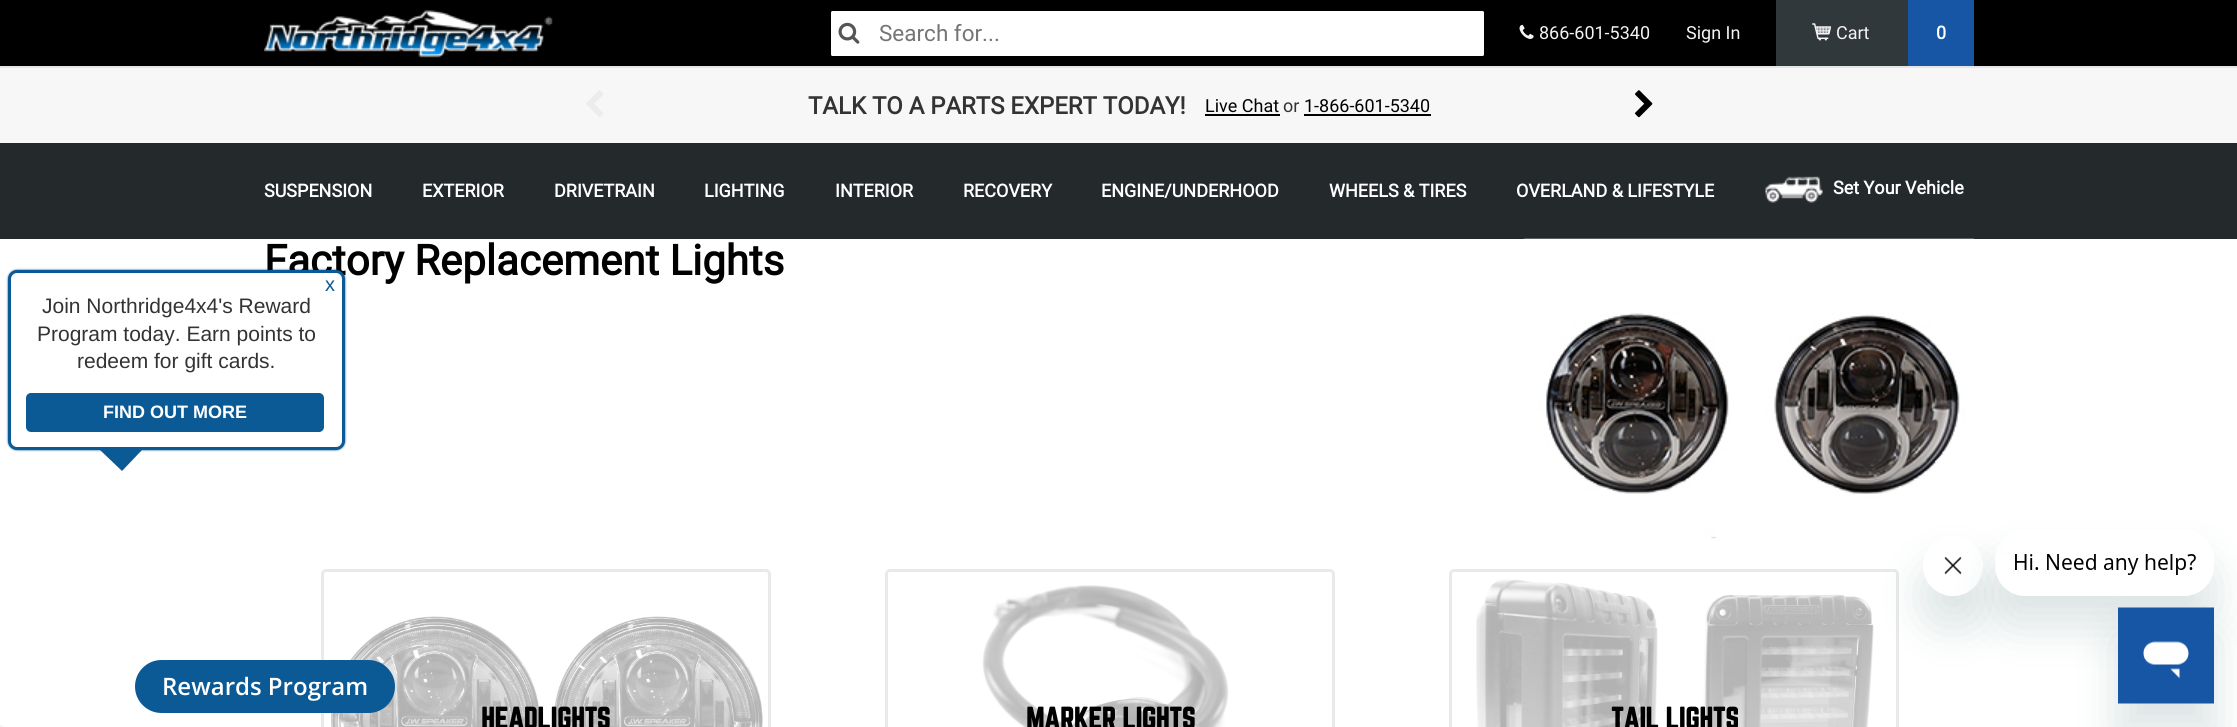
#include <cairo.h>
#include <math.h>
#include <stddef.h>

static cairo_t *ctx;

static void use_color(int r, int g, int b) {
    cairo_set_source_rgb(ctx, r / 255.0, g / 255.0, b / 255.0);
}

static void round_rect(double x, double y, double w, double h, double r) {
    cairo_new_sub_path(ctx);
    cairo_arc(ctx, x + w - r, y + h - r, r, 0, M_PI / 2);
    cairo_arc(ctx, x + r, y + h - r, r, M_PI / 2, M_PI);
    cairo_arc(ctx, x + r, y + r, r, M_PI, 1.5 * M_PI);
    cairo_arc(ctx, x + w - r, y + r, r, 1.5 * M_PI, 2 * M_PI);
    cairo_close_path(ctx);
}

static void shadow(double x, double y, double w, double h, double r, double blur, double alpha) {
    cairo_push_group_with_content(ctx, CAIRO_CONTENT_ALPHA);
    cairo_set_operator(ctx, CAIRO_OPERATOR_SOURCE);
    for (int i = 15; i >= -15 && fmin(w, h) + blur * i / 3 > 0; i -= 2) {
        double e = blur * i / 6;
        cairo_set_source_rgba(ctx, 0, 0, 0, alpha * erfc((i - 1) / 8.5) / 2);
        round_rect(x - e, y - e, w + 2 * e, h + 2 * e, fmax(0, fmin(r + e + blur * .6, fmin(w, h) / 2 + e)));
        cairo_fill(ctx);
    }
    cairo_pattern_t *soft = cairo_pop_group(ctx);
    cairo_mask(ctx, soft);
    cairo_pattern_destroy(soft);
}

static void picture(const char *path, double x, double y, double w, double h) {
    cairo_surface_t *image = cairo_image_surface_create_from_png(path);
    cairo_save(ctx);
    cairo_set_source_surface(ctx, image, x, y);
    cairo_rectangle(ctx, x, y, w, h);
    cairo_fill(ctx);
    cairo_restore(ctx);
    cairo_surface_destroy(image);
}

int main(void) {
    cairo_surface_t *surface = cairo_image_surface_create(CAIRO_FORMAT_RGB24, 2237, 727);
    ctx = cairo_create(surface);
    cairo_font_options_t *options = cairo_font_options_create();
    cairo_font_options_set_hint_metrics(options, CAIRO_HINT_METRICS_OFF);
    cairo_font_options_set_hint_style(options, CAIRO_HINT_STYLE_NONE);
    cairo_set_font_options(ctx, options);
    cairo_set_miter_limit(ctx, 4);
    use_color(255, 255, 255);
    cairo_paint(ctx);
    use_color(11, 90, 150);
    shadow(8, 270, 337, 180, 9, 1, 1);
    cairo_select_font_face(ctx, "Roboto", CAIRO_FONT_SLANT_NORMAL, CAIRO_FONT_WEIGHT_BOLD);
    cairo_set_font_size(ctx, 42);
    use_color(0, 0, 0);
    cairo_move_to(ctx, 264, 275);
    cairo_show_text(ctx, "Factory Replacement Lights");
    use_color(255, 255, 255);
    round_rect(9.5, 271.5, 334, 177, 7.5);
    cairo_fill_preserve(ctx);
    use_color(11, 90, 150);
    cairo_set_line_width(ctx, 3);
    cairo_stroke(ctx);
    cairo_select_font_face(ctx, "Liberation Sans", CAIRO_FONT_SLANT_NORMAL, CAIRO_FONT_WEIGHT_NORMAL);
    cairo_set_font_size(ctx, 20);
    cairo_move_to(ctx, 325, 291);
    cairo_show_text(ctx, "x");
    cairo_set_font_size(ctx, 21);
    use_color(51, 51, 51);
    cairo_move_to(ctx, 42, 313);
    cairo_show_text(ctx, "Join Northridge4x4's Reward");
    cairo_move_to(ctx, 37, 341);
    cairo_show_text(ctx, "Program today. Earn points to");
    cairo_move_to(ctx, 77, 368);
    cairo_show_text(ctx, "redeem for gift cards.");
    use_color(11, 90, 150);
    round_rect(26, 393, 298, 39, 5);
    cairo_fill(ctx);
    cairo_select_font_face(ctx, "Liberation Sans", CAIRO_FONT_SLANT_NORMAL, CAIRO_FONT_WEIGHT_BOLD);
    cairo_set_font_size(ctx, 18);
    use_color(255, 255, 255);
    cairo_move_to(ctx, 103, 418);
    cairo_show_text(ctx, "FIND OUT MORE");
    use_color(11, 90, 150);
    cairo_new_path(ctx);
    cairo_move_to(ctx, 100, 450);
    cairo_line_to(ctx, 142, 450);
    cairo_line_to(ctx, 122, 471);
    cairo_close_path(ctx);
    cairo_fill(ctx);
    use_color(0, 0, 0);
    cairo_rectangle(ctx, 0, 0, 2237, 66);
    cairo_fill(ctx);
    picture("img1.png", 264, 10, 289, 48);
    use_color(255, 255, 255);
    round_rect(831, 11, 653, 45, 1.5);
    cairo_fill(ctx);
    picture("img2.png", 838, 22, 22, 22);
    cairo_select_font_face(ctx, "Roboto", CAIRO_FONT_SLANT_NORMAL, CAIRO_FONT_WEIGHT_NORMAL);
    cairo_set_font_size(ctx, 22.5);
    use_color(117, 117, 117);
    cairo_move_to(ctx, 879, 41);
    cairo_show_text(ctx, "Search for...");
    picture("img3.png", 1519, 24, 15, 15);
    cairo_set_font_size(ctx, 18);
    use_color(244, 244, 244);
    cairo_move_to(ctx, 1539, 39);
    cairo_show_text(ctx, "866-601-5340");
    cairo_move_to(ctx, 1686, 39);
    cairo_show_text(ctx, "Sign In");
    use_color(49, 56, 60);
    cairo_rectangle(ctx, 1776, 0, 132, 66);
    cairo_fill(ctx);
    picture("img4.png", 1812, 23, 20, 18);
    use_color(244, 244, 244);
    cairo_move_to(ctx, 1836, 39);
    cairo_show_text(ctx, "Cart");
    use_color(23, 86, 165);
    cairo_rectangle(ctx, 1908, 0, 66, 66);
    cairo_fill(ctx);
    cairo_select_font_face(ctx, "Roboto", CAIRO_FONT_SLANT_NORMAL, CAIRO_FONT_WEIGHT_BOLD);
    use_color(255, 255, 255);
    cairo_move_to(ctx, 1936, 39);
    cairo_show_text(ctx, "0");
    use_color(247, 247, 247);
    cairo_rectangle(ctx, 0, 68, 2237, 75);
    cairo_fill(ctx);
    use_color(229, 229, 229);
    cairo_rectangle(ctx, 0, 66, 2237, 2);
    cairo_fill(ctx);
    picture("img5.png", 586, 90, 17, 27);
    cairo_set_font_size(ctx, 24);
    use_color(51, 51, 51);
    cairo_move_to(ctx, 808, 114);
    cairo_show_text(ctx, "TALK TO A PARTS EXPERT TODAY!");
    cairo_select_font_face(ctx, "Roboto", CAIRO_FONT_SLANT_NORMAL, CAIRO_FONT_WEIGHT_NORMAL);
    cairo_set_font_size(ctx, 18);
    use_color(0, 0, 0);
    cairo_move_to(ctx, 1205, 112);
    cairo_show_text(ctx, "Live Chat");
    cairo_rectangle(ctx, 1205, 114, 75, 2);
    cairo_fill(ctx);
    use_color(51, 51, 51);
    cairo_move_to(ctx, 1283, 112);
    cairo_show_text(ctx, "or");
    use_color(0, 0, 0);
    cairo_move_to(ctx, 1304, 112);
    cairo_show_text(ctx, "1-866-601-5340");
    cairo_rectangle(ctx, 1304, 114, 127, 2);
    cairo_fill(ctx);
    picture("img6.png", 1635, 90, 18, 28);
    use_color(36, 41, 44);
    cairo_rectangle(ctx, 0, 143, 2237, 96);
    cairo_fill(ctx);
    cairo_select_font_face(ctx, "Roboto", CAIRO_FONT_SLANT_NORMAL, CAIRO_FONT_WEIGHT_BOLD);
    use_color(255, 255, 255);
    cairo_move_to(ctx, 264, 197);
    cairo_show_text(ctx, "SUSPENSION");
    cairo_move_to(ctx, 422, 197);
    cairo_show_text(ctx, "EXTERIOR");
    cairo_move_to(ctx, 554, 197);
    cairo_show_text(ctx, "DRIVETRAIN");
    cairo_move_to(ctx, 704, 197);
    cairo_show_text(ctx, "LIGHTING");
    cairo_move_to(ctx, 835, 197);
    cairo_show_text(ctx, "INTERIOR");
    cairo_move_to(ctx, 963, 197);
    cairo_show_text(ctx, "RECOVERY");
    cairo_move_to(ctx, 1101, 197);
    cairo_show_text(ctx, "ENGINE/UNDERHOOD");
    cairo_move_to(ctx, 1329, 197);
    cairo_show_text(ctx, "WHEELS & TIRES");
    cairo_move_to(ctx, 1516, 197);
    cairo_show_text(ctx, "OVERLAND & LIFESTYLE");
    picture("img7.png", 1765, 176, 58, 27);
    cairo_move_to(ctx, 1833, 194);
    cairo_show_text(ctx, "Set Your Vehicle");
    picture("img8.png", 1524, 238, 450, 301);
    round_rect(322.5, 570.5, 447, 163, 3.5);
    use_color(233, 233, 233);
    cairo_stroke(ctx);
    picture("img9.png", 331, 616, 432, 111);
    cairo_select_font_face(ctx, "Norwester", CAIRO_FONT_SLANT_NORMAL, CAIRO_FONT_WEIGHT_BOLD);
    cairo_set_font_size(ctx, 27);
    use_color(0, 0, 0);
    cairo_move_to(ctx, 481, 729);
    cairo_show_text(ctx, "HEADLIGHTS");
    round_rect(886.5, 570.5, 447, 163, 3.5);
    use_color(233, 233, 233);
    cairo_stroke(ctx);
    picture("img10.png", 982, 585, 247, 142);
    use_color(0, 0, 0);
    cairo_move_to(ctx, 1026, 729);
    cairo_show_text(ctx, "MARKER LIGHTS");
    round_rect(1450.5, 570.5, 447, 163, 3.5);
    use_color(233, 233, 233);
    cairo_stroke(ctx);
    picture("img11.png", 1476, 579, 398, 148);
    use_color(0, 0, 0);
    cairo_move_to(ctx, 1611, 729);
    cairo_show_text(ctx, "TAIL LIGHTS");
    use_color(11, 90, 150);
    round_rect(135, 660, 260, 53, 26.5);
    cairo_fill(ctx);
    cairo_select_font_face(ctx, "Open Sans SemiBold", CAIRO_FONT_SLANT_NORMAL, CAIRO_FONT_WEIGHT_NORMAL);
    cairo_set_font_size(ctx, 24);
    use_color(255, 255, 255);
    cairo_move_to(ctx, 162, 695);
    cairo_show_text(ctx, "Rewards Program");
    cairo_save(ctx);
    cairo_set_fill_rule(ctx, CAIRO_FILL_RULE_EVEN_ODD);
    cairo_new_path(ctx);
    cairo_move_to(ctx, 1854, 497);
    cairo_line_to(ctx, 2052, 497);
    cairo_line_to(ctx, 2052, 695);
    cairo_line_to(ctx, 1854, 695);
    cairo_close_path(ctx);
    cairo_move_to(ctx, 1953, 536);
    cairo_curve_to(ctx, 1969.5, 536, 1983, 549.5, 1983, 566);
    cairo_curve_to(ctx, 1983, 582.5, 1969.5, 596, 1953, 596);
    cairo_curve_to(ctx, 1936.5, 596, 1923, 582.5, 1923, 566);
    cairo_curve_to(ctx, 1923, 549.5, 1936.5, 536, 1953, 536);
    cairo_close_path(ctx);
    cairo_clip(ctx);
    use_color(23, 73, 77);
    shadow(1923, 566, 60, 60, 30, 22.5, 0.15);
    cairo_restore(ctx);
    picture("img13.png", 1942, 556, 22, 40);
    cairo_save(ctx);
    cairo_set_fill_rule(ctx, CAIRO_FILL_RULE_EVEN_ODD);
    cairo_new_path(ctx);
    cairo_move_to(ctx, 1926, 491);
    cairo_line_to(ctx, 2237, 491);
    cairo_line_to(ctx, 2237, 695);
    cairo_line_to(ctx, 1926, 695);
    cairo_close_path(ctx);
    cairo_move_to(ctx, 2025, 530);
    cairo_line_to(ctx, 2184, 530);
    cairo_curve_to(ctx, 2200.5, 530, 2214, 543.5, 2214, 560);
    cairo_line_to(ctx, 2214, 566);
    cairo_curve_to(ctx, 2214, 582.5, 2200.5, 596, 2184, 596);
    cairo_line_to(ctx, 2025, 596);
    cairo_curve_to(ctx, 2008.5, 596, 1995, 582.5, 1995, 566);
    cairo_line_to(ctx, 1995, 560);
    cairo_curve_to(ctx, 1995, 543.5, 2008.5, 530, 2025, 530);
    cairo_close_path(ctx);
    cairo_clip(ctx);
    use_color(23, 73, 77);
    shadow(1995, 560, 219, 66, 30, 22.5, 0.15);
    cairo_restore(ctx);
    picture("img12.png", 1996, 554, 200, 41);
    use_color(23, 73, 77);
    shadow(2118, 638, 96, 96, 0, 22.5, 0.15);
    picture("img14.png", 2118, 607, 96, 97);
    use_color(245, 245, 245);
    cairo_rectangle(ctx, 0, 725, 3, 2);
    cairo_fill(ctx);
    cairo_surface_write_to_png(surface, "result.png");
    cairo_font_options_destroy(options);
    cairo_destroy(ctx);
    cairo_surface_destroy(surface);
    return 0;
}
